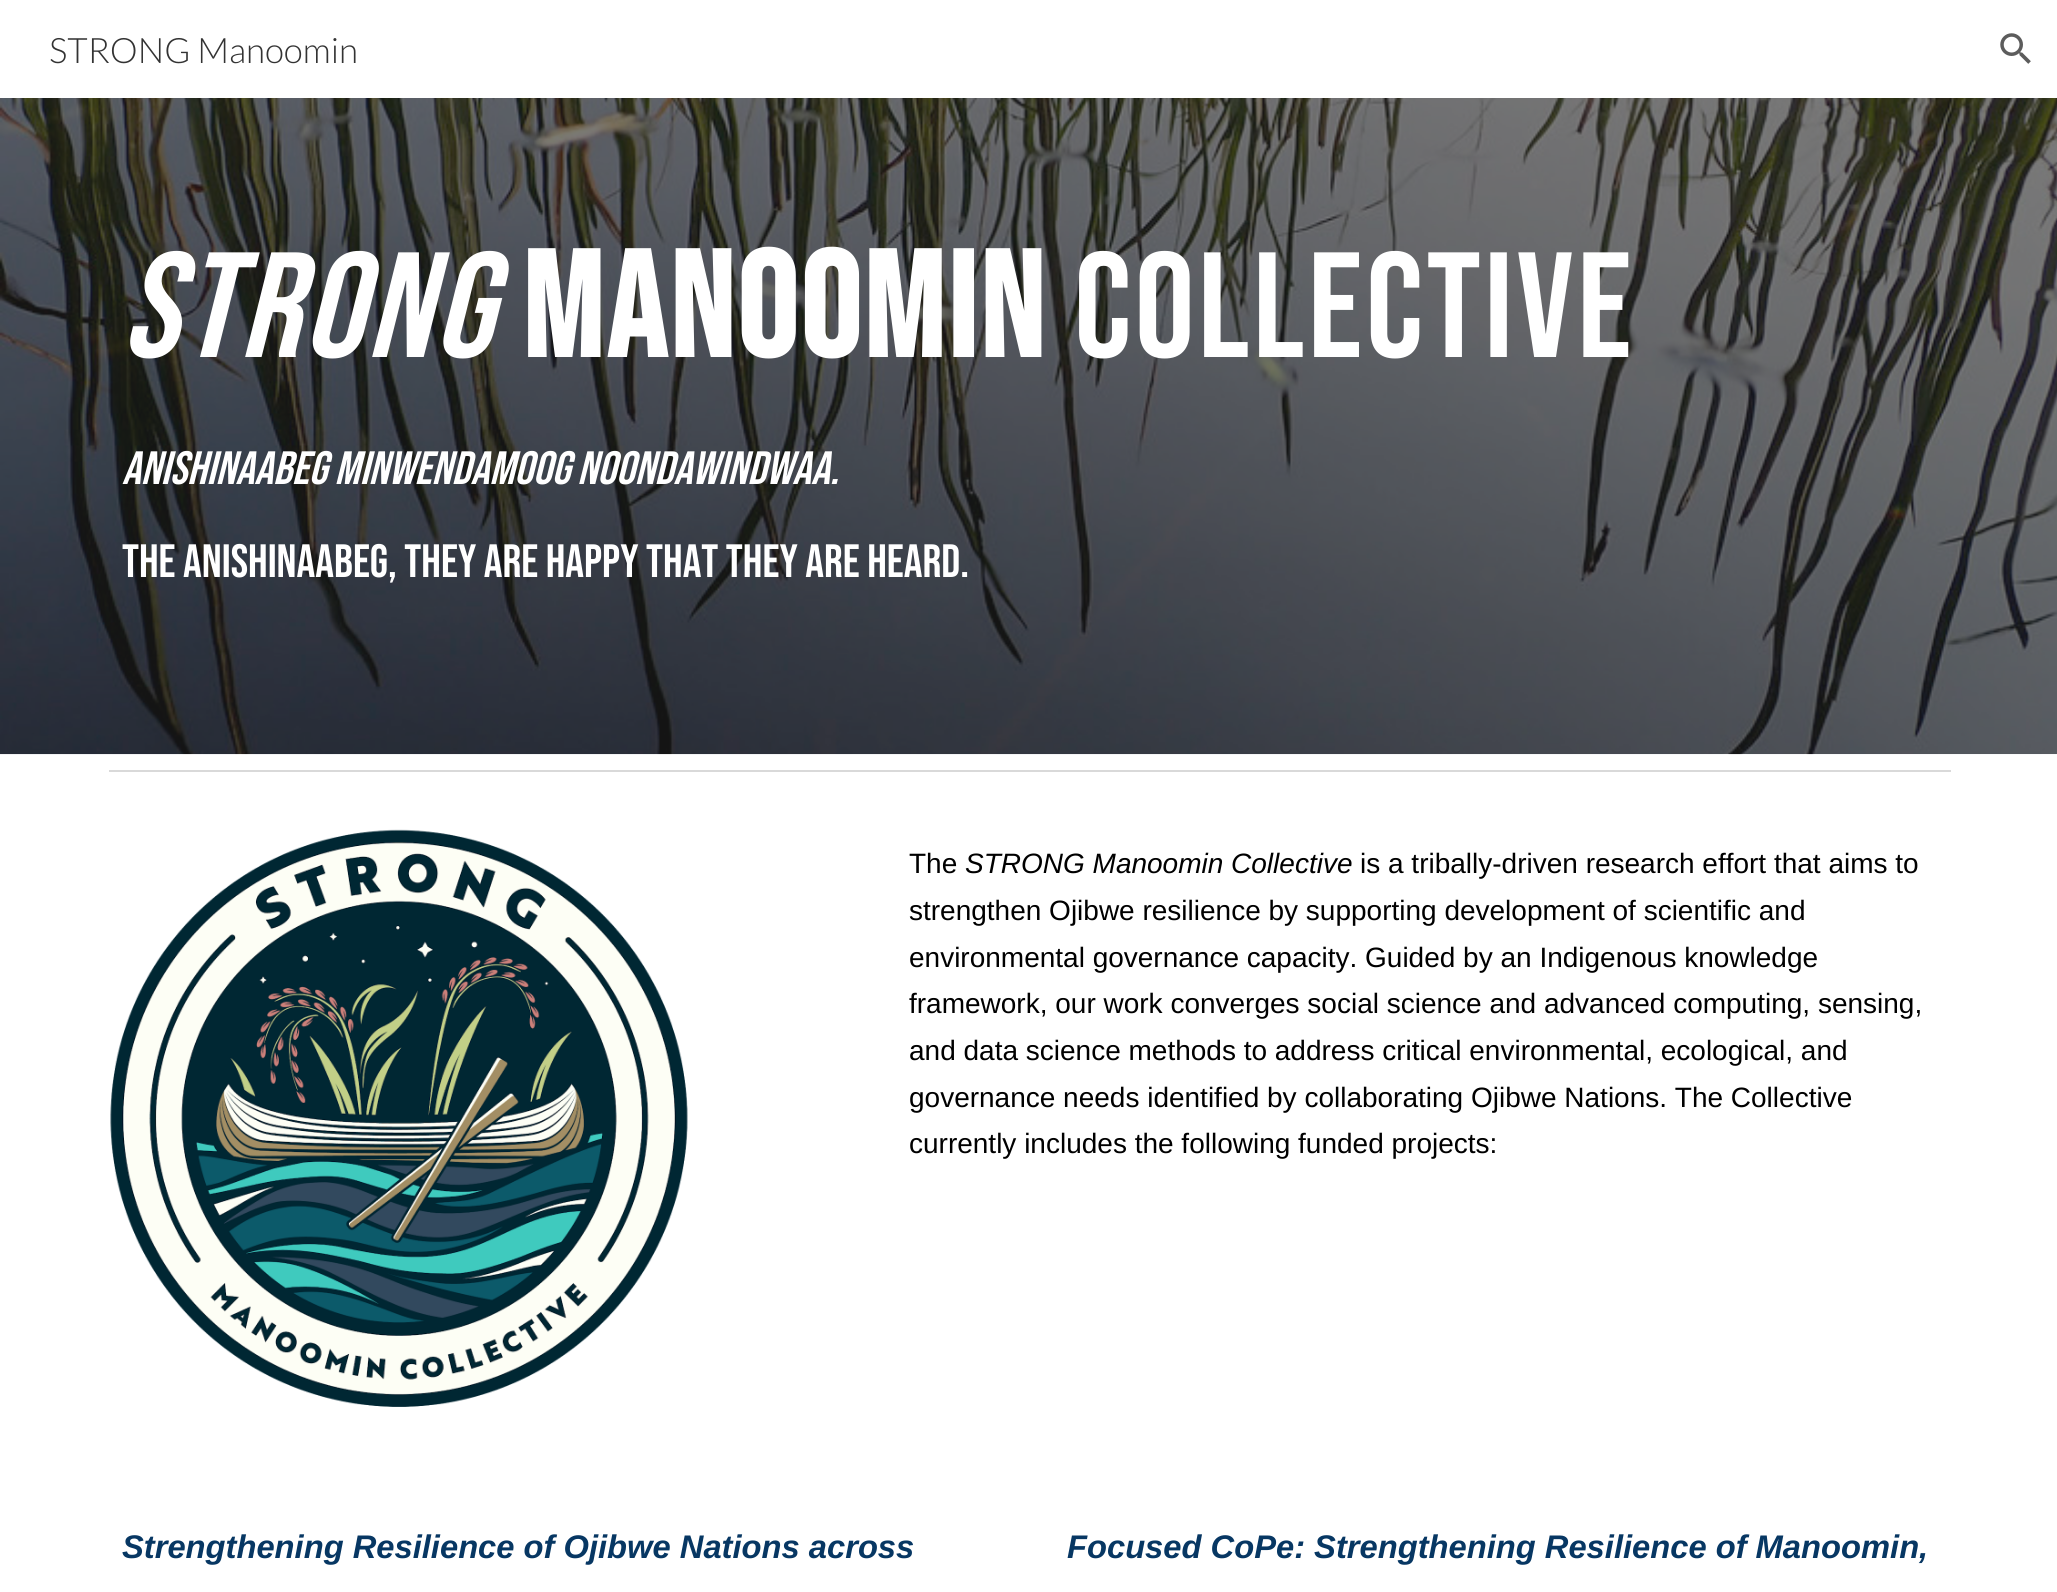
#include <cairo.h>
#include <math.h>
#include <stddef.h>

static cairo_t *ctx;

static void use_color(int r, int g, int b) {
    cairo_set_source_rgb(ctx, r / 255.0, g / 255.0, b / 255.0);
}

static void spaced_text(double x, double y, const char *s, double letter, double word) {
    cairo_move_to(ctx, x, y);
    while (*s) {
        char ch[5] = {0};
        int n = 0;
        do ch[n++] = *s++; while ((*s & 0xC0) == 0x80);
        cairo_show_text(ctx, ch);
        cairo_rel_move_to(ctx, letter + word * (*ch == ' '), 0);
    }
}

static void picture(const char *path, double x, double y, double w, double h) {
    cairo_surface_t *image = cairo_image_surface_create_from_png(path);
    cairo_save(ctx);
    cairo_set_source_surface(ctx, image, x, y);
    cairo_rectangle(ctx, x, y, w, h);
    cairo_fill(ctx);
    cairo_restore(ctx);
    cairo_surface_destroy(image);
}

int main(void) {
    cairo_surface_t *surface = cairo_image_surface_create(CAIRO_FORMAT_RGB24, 2057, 1592);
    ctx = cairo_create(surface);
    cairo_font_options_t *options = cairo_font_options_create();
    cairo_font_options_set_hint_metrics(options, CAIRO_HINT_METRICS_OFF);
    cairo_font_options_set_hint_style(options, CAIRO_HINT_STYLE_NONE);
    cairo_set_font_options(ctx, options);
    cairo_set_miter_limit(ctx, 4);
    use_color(255, 255, 255);
    cairo_paint(ctx);
    cairo_select_font_face(ctx, "Lato Light", CAIRO_FONT_SLANT_NORMAL, CAIRO_FONT_WEIGHT_NORMAL);
    cairo_set_font_size(ctx, 35);
    use_color(51, 51, 51);
    cairo_move_to(ctx, 49, 63);
    cairo_show_text(ctx, "STRONG Manoomin");
    picture("img1.png", 2000, 33, 31, 31);
    picture("img2.png", 0, 98, 2057, 657);
    cairo_select_font_face(ctx, "Bebas Neue", CAIRO_FONT_SLANT_ITALIC, CAIRO_FONT_WEIGHT_NORMAL);
    cairo_set_font_size(ctx, 149.5);
    use_color(255, 255, 255);
    spaced_text(122, 357, "STRONG", 3.5, 0);
    cairo_select_font_face(ctx, "Bebas Neue", CAIRO_FONT_SLANT_NORMAL, CAIRO_FONT_WEIGHT_BOLD);
    spaced_text(522, 357, "Manoomin", 3.5, 0);
    cairo_select_font_face(ctx, "Bebas Neue", CAIRO_FONT_SLANT_NORMAL, CAIRO_FONT_WEIGHT_NORMAL);
    spaced_text(1074, 357, "Collective", 3.5, 0);
    cairo_select_font_face(ctx, "Bebas Neue", CAIRO_FONT_SLANT_ITALIC, CAIRO_FONT_WEIGHT_NORMAL);
    cairo_set_font_size(ctx, 46.7);
    cairo_move_to(ctx, 122, 484);
    cairo_show_text(ctx, "Anishinaabeg minwendamoog noondawindwaa.");
    cairo_select_font_face(ctx, "Bebas Neue", CAIRO_FONT_SLANT_NORMAL, CAIRO_FONT_WEIGHT_NORMAL);
    cairo_move_to(ctx, 122, 577);
    cairo_show_text(ctx, "The Anishinaabeg, they are happy that they are heard.");
    use_color(217, 217, 217);
    cairo_rectangle(ctx, 109, 770, 1842, 2);
    cairo_fill(ctx);
    picture("img3.png", 110, 829, 578, 578);
    cairo_select_font_face(ctx, "Liberation Sans", CAIRO_FONT_SLANT_NORMAL, CAIRO_FONT_WEIGHT_NORMAL);
    cairo_set_font_size(ctx, 28);
    use_color(0, 0, 0);
    cairo_move_to(ctx, 909, 873);
    cairo_show_text(ctx, "The");
    cairo_select_font_face(ctx, "Liberation Sans", CAIRO_FONT_SLANT_ITALIC, CAIRO_FONT_WEIGHT_NORMAL);
    cairo_move_to(ctx, 965, 873);
    cairo_show_text(ctx, "STRONG Manoomin Collective");
    cairo_select_font_face(ctx, "Liberation Sans", CAIRO_FONT_SLANT_NORMAL, CAIRO_FONT_WEIGHT_NORMAL);
    cairo_move_to(ctx, 1360, 873);
    cairo_show_text(ctx, "is a tribally-driven research effort that aims to");
    cairo_move_to(ctx, 909, 920);
    cairo_show_text(ctx, "strengthen Ojibwe resilience by supporting development of scientific and");
    cairo_move_to(ctx, 909, 967);
    cairo_show_text(ctx, "environmental governance capacity. Guided by an Indigenous knowledge");
    cairo_move_to(ctx, 909, 1013);
    cairo_show_text(ctx, "framework, our work converges social science and advanced computing, sensing,");
    cairo_move_to(ctx, 909, 1060);
    cairo_show_text(ctx, "and data science methods to address critical environmental, ecological, and");
    cairo_move_to(ctx, 909, 1107);
    cairo_show_text(ctx, "governance needs identified by collaborating Ojibwe Nations. The Collective");
    cairo_move_to(ctx, 909, 1153);
    cairo_show_text(ctx, "currently includes the following funded projects:");
    cairo_select_font_face(ctx, "Liberation Sans", CAIRO_FONT_SLANT_ITALIC, CAIRO_FONT_WEIGHT_BOLD);
    cairo_set_font_size(ctx, 32.7);
    use_color(7, 55, 99);
    cairo_move_to(ctx, 122, 1558);
    cairo_show_text(ctx, "Strengthening Resilience of Ojibwe Nations across");
    cairo_move_to(ctx, 1067, 1558);
    cairo_show_text(ctx, "Focused CoPe: Strengthening Resilience of Manoomin,");
    cairo_surface_write_to_png(surface, "result.png");
    cairo_font_options_destroy(options);
    cairo_destroy(ctx);
    cairo_surface_destroy(surface);
    return 0;
}
